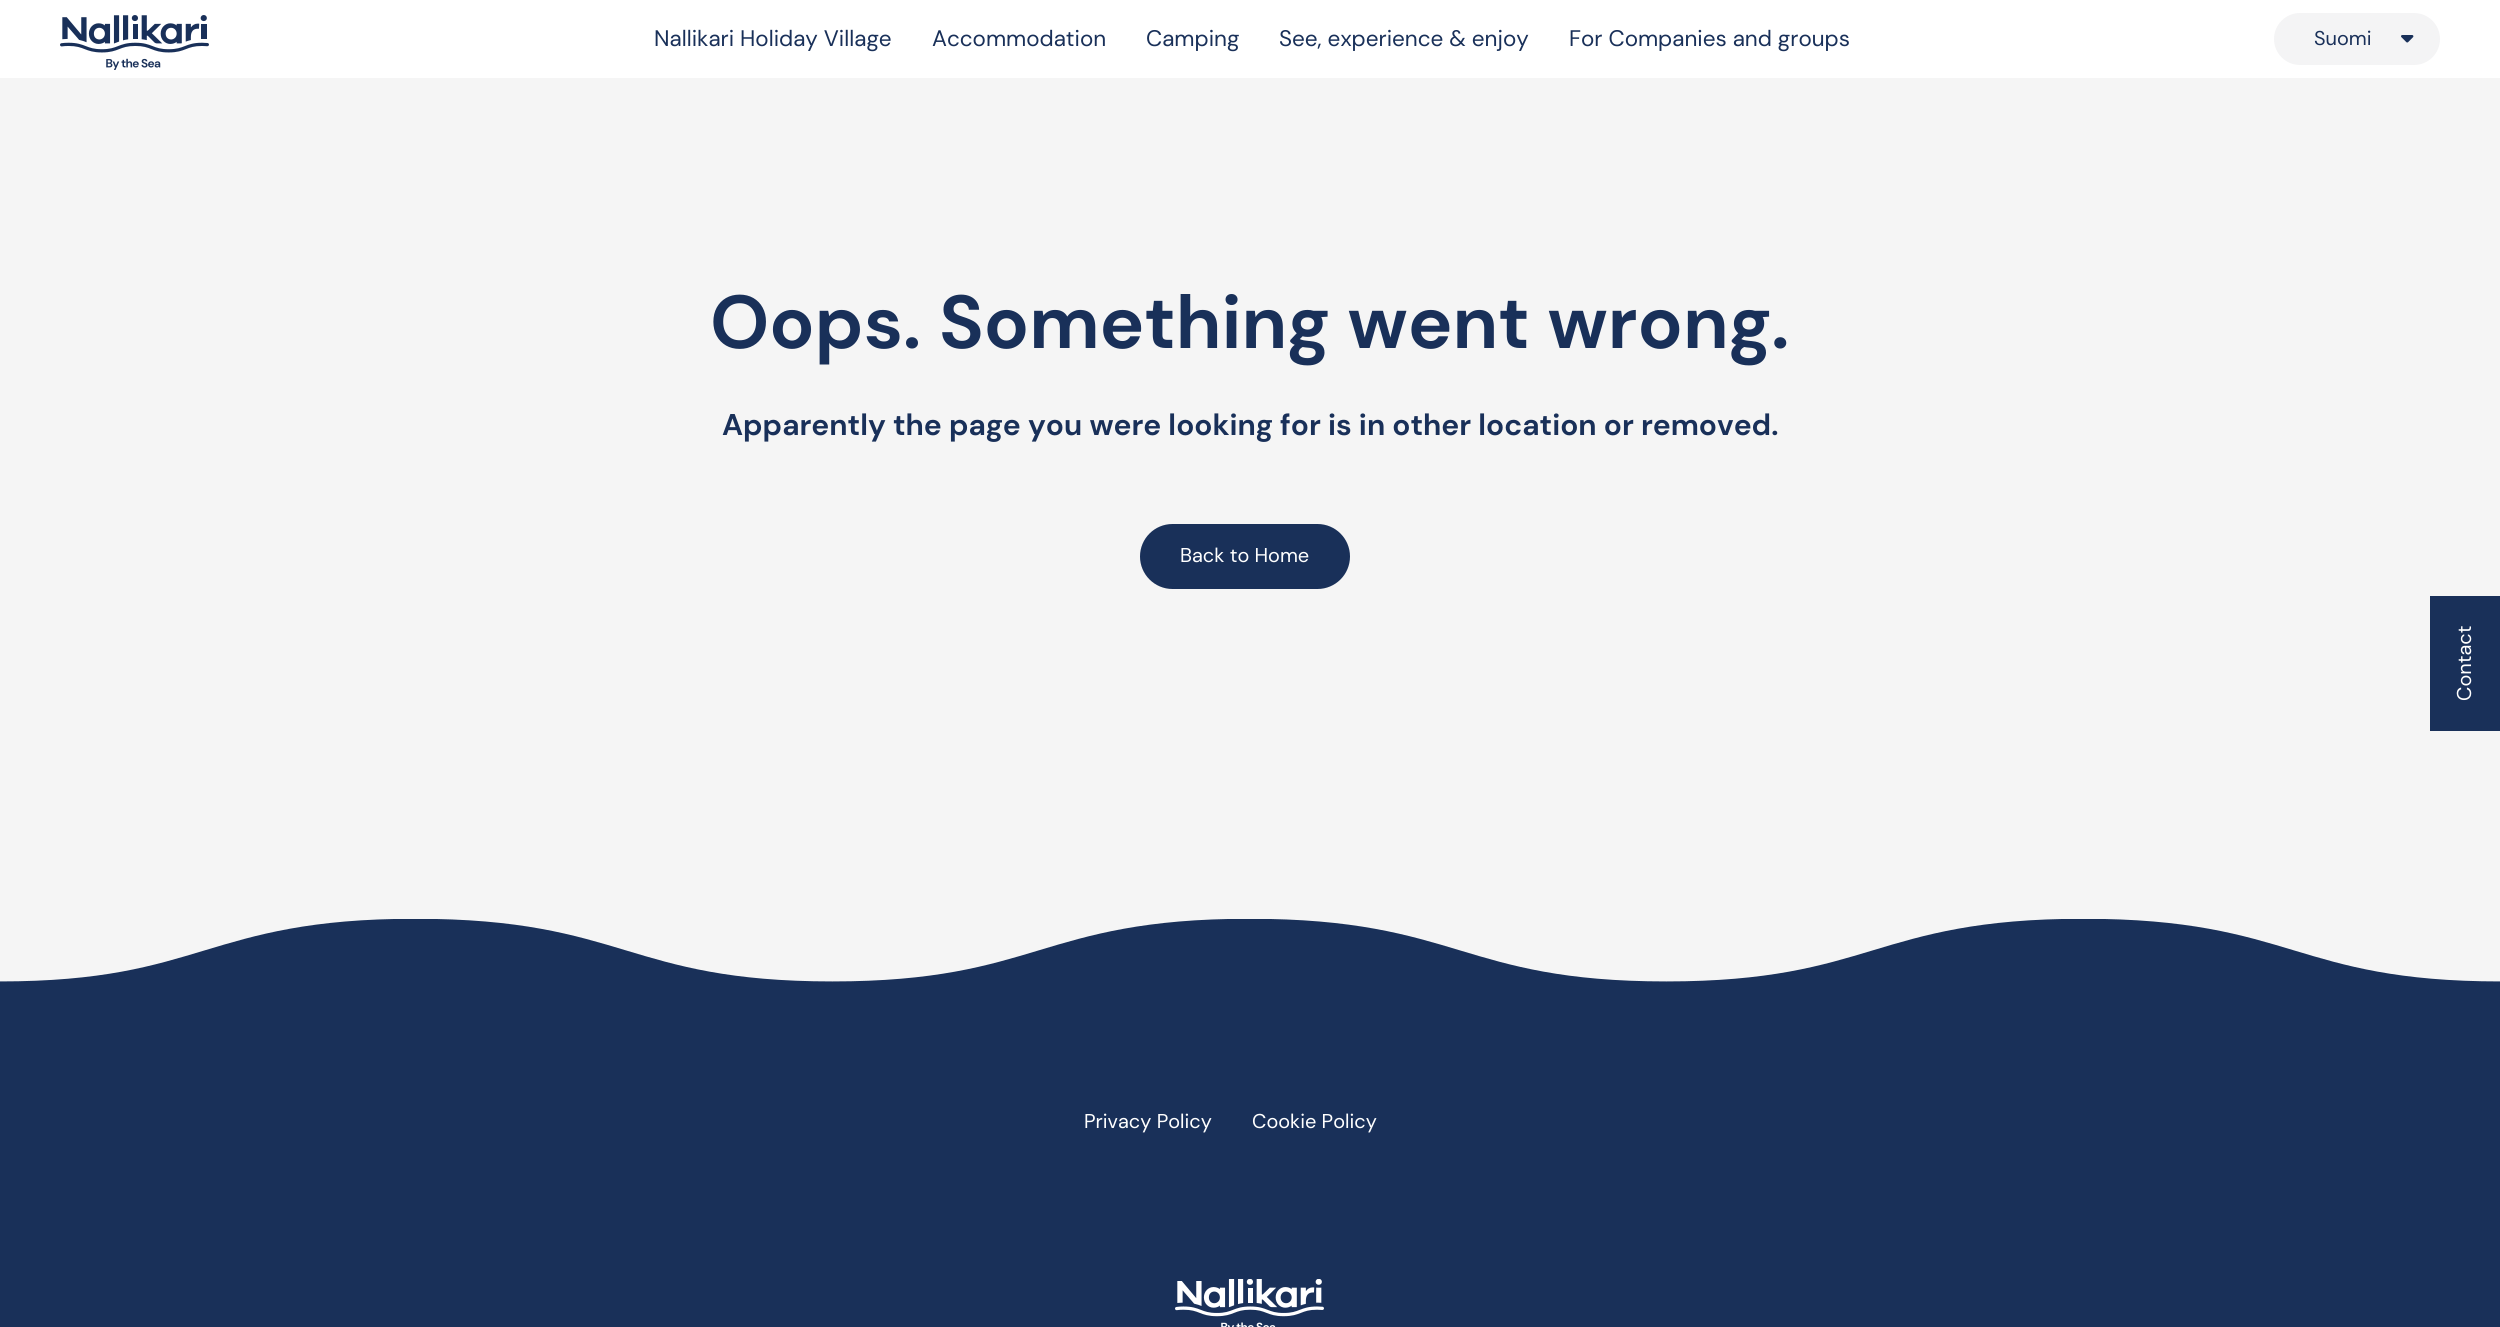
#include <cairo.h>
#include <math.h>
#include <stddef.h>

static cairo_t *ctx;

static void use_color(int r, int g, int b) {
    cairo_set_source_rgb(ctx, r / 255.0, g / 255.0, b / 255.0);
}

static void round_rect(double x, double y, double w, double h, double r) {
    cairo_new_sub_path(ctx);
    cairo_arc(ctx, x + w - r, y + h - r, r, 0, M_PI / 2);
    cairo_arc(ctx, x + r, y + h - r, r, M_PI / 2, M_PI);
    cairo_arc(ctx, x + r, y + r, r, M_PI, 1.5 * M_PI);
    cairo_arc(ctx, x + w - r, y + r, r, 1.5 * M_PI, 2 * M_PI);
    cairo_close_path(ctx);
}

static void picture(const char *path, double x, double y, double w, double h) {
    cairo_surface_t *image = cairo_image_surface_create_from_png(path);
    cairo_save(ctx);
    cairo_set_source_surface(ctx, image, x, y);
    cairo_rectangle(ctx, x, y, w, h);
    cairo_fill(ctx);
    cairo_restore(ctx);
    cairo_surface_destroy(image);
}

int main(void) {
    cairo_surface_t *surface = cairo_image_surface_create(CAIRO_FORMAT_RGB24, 2500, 1327);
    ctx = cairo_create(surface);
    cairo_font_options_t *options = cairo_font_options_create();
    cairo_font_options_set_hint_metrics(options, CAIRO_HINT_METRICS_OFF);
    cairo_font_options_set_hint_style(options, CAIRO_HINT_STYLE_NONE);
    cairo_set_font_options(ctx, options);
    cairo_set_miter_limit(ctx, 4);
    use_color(245, 245, 245);
    cairo_paint(ctx);
    use_color(255, 255, 255);
    cairo_rectangle(ctx, 0, 0, 2500, 78);
    cairo_fill(ctx);
    picture("img1.png", 60, 15, 149, 55);
    cairo_select_font_face(ctx, "DM Sans", CAIRO_FONT_SLANT_NORMAL, CAIRO_FONT_WEIGHT_NORMAL);
    cairo_set_font_size(ctx, 22.5);
    use_color(25, 48, 89);
    cairo_move_to(ctx, 654, 46);
    cairo_show_text(ctx, "Nallikari Holiday Village");
    cairo_move_to(ctx, 932, 46);
    cairo_show_text(ctx, "Accommodation");
    cairo_move_to(ctx, 1146, 46);
    cairo_show_text(ctx, "Camping");
    cairo_move_to(ctx, 1279, 46);
    cairo_show_text(ctx, "See, experience & enjoy");
    cairo_move_to(ctx, 1569, 46);
    cairo_show_text(ctx, "For Companies and groups");
    use_color(244, 244, 245);
    round_rect(2274, 13, 166, 52, 26);
    cairo_fill(ctx);
    picture("img2.png", 2401, 35, 13, 8);
    cairo_set_font_size(ctx, 20);
    use_color(25, 48, 89);
    cairo_move_to(ctx, 2314, 45);
    cairo_show_text(ctx, "Suomi");
    cairo_select_font_face(ctx, "DM Sans", CAIRO_FONT_SLANT_NORMAL, CAIRO_FONT_WEIGHT_BOLD);
    cairo_set_font_size(ctx, 75);
    cairo_move_to(ctx, 710, 348);
    cairo_show_text(ctx, "Oops. Something went wrong.");
    cairo_set_font_size(ctx, 30);
    cairo_move_to(ctx, 722, 435);
    cairo_show_text(ctx, "Apparently the page you were looking for is in other location or removed.");
    round_rect(1140, 524, 210, 65, 32.5);
    cairo_fill(ctx);
    cairo_select_font_face(ctx, "DM Sans", CAIRO_FONT_SLANT_NORMAL, CAIRO_FONT_WEIGHT_NORMAL);
    cairo_set_font_size(ctx, 20);
    use_color(255, 255, 255);
    cairo_move_to(ctx, 1180, 562);
    cairo_show_text(ctx, "Back to Home");
    use_color(25, 48, 89);
    cairo_rectangle(ctx, 2430, 596, 70, 135);
    cairo_fill(ctx);
    use_color(255, 255, 255);
    cairo_save(ctx);
    cairo_translate(ctx, 2471, 701);
    cairo_rotate(ctx, -90 * M_PI / 180);
    cairo_move_to(ctx, 0, 0);
    cairo_show_text(ctx, "Contact");
    cairo_restore(ctx);
    picture("img3.png", 0, 919, 2500, 144);
    use_color(25, 48, 89);
    cairo_rectangle(ctx, 0, 1063, 2500, 264);
    cairo_fill(ctx);
    use_color(255, 255, 255);
    cairo_move_to(ctx, 1084, 1128);
    cairo_show_text(ctx, "Privacy Policy");
    cairo_move_to(ctx, 1252, 1128);
    cairo_show_text(ctx, "Cookie Policy");
    picture("img4.png", 1175, 1279, 149, 48);
    cairo_surface_write_to_png(surface, "result.png");
    cairo_font_options_destroy(options);
    cairo_destroy(ctx);
    cairo_surface_destroy(surface);
    return 0;
}
